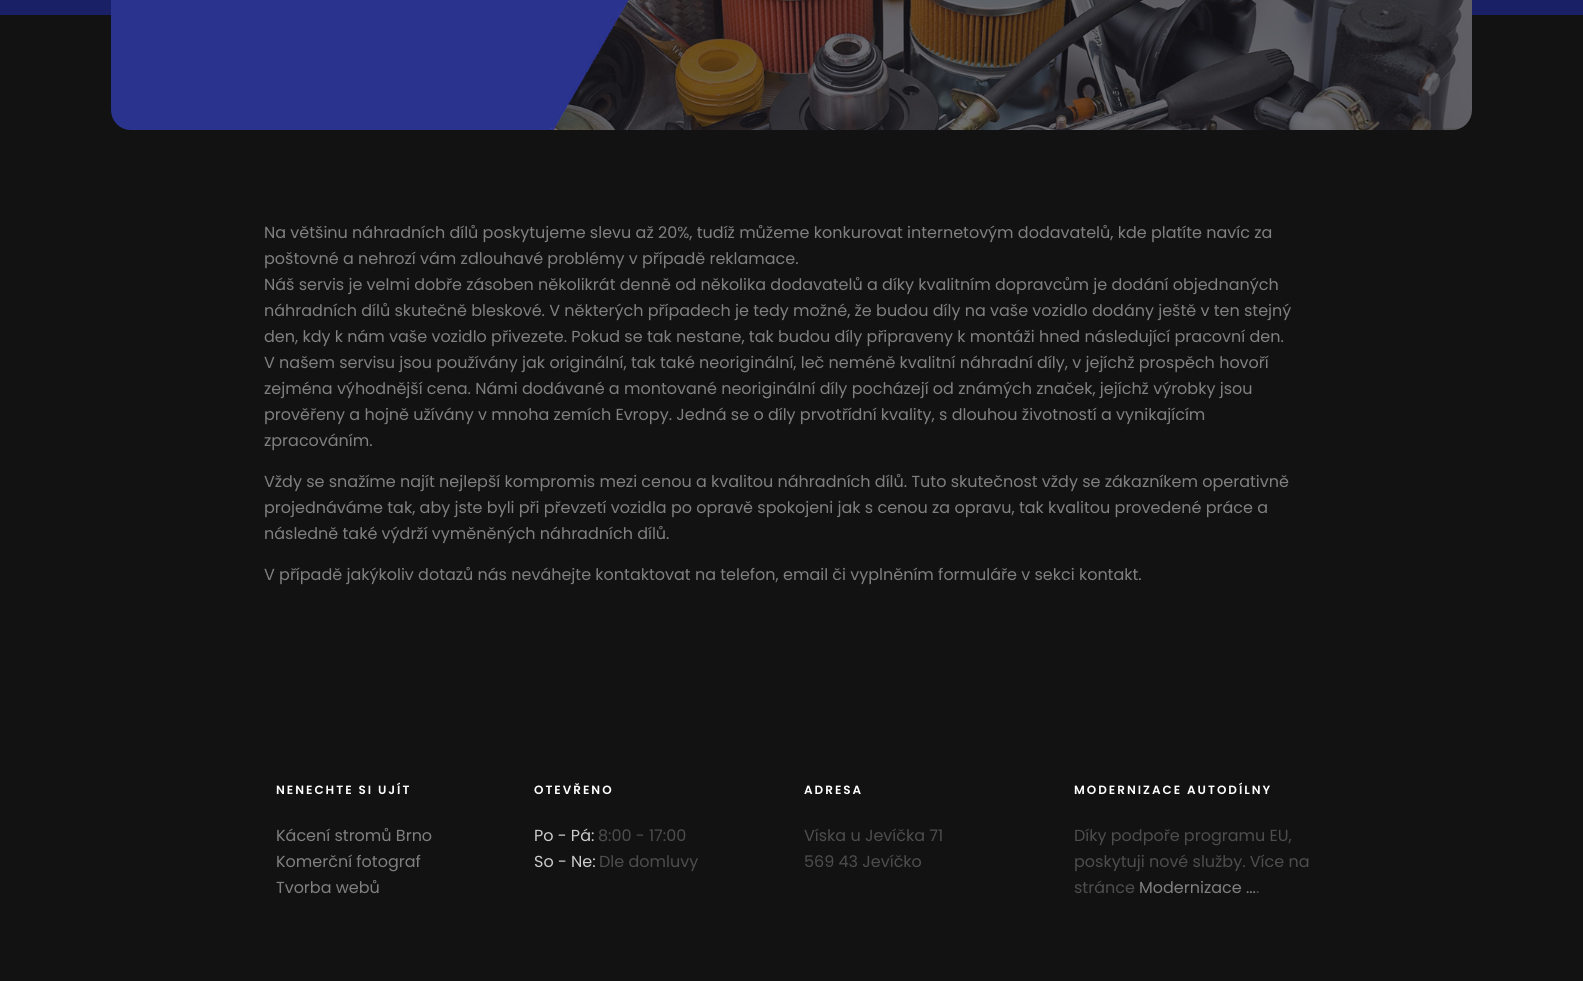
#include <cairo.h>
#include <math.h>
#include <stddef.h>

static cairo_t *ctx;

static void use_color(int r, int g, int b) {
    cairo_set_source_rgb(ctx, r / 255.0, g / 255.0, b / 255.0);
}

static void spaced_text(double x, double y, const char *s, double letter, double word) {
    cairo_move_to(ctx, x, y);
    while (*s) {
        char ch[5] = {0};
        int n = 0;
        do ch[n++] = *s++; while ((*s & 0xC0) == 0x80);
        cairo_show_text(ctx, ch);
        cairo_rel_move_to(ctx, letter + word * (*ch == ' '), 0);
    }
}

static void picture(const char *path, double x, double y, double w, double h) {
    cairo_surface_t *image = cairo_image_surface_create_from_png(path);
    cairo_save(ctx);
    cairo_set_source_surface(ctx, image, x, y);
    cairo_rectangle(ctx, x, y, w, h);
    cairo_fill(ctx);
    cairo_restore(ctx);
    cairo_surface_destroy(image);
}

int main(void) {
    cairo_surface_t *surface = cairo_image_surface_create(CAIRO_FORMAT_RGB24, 1583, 981);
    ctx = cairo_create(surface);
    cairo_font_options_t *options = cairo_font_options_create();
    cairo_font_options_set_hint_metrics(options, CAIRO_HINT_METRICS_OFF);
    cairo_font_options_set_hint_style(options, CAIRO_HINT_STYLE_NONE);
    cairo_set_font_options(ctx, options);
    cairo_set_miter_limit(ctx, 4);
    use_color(18, 18, 18);
    cairo_paint(ctx);
    use_color(25, 32, 101);
    cairo_rectangle(ctx, 0, 0, 1583, 15);
    cairo_fill(ctx);
    picture("img1.png", 111, 0, 1361, 130);
    cairo_select_font_face(ctx, "Poppins", CAIRO_FONT_SLANT_NORMAL, CAIRO_FONT_WEIGHT_NORMAL);
    cairo_set_font_size(ctx, 16);
    use_color(128, 128, 128);
    cairo_move_to(ctx, 264, 238);
    cairo_show_text(ctx, "Na většinu náhradních dílů poskytujeme slevu až 20%, tudíž můžeme konkurovat internetovým dodavatelů, kde platíte navíc za");
    cairo_move_to(ctx, 264, 264);
    cairo_show_text(ctx, "poštovné a nehrozí vám zdlouhavé problémy v případě reklamace.");
    cairo_move_to(ctx, 264, 290);
    cairo_show_text(ctx, "Náš servis je velmi dobře zásoben několikrát denně od několika dodavatelů a díky kvalitním dopravcům je dodání objednaných");
    cairo_move_to(ctx, 264, 316);
    cairo_show_text(ctx, "náhradních dílů skutečně bleskové. V některých případech je tedy možné, že budou díly na vaše vozidlo dodány ještě v ten stejný");
    cairo_move_to(ctx, 264, 342);
    cairo_show_text(ctx, "den, kdy k nám vaše vozidlo přivezete. Pokud se tak nestane, tak budou díly připraveny k montáži hned následující pracovní den.");
    cairo_move_to(ctx, 264, 368);
    cairo_show_text(ctx, "V našem servisu jsou používány jak originální, tak také neoriginální, leč neméně kvalitní náhradní díly, v jejíchž prospěch hovoří");
    cairo_move_to(ctx, 264, 394);
    cairo_show_text(ctx, "zejména výhodnější cena. Námi dodávané a montované neoriginální díly pocházejí od známých značek, jejíchž výrobky jsou");
    cairo_move_to(ctx, 264, 420);
    cairo_show_text(ctx, "prověřeny a hojně užívány v mnoha zemích Evropy. Jedná se o díly prvotřídní kvality, s dlouhou životností a vynikajícím");
    cairo_move_to(ctx, 264, 446);
    cairo_show_text(ctx, "zpracováním.");
    cairo_move_to(ctx, 264, 487);
    cairo_show_text(ctx, "Vždy se snažíme najít nejlepší kompromis mezi cenou a kvalitou náhradních dílů. Tuto skutečnost vždy se zákazníkem operativně");
    cairo_move_to(ctx, 264, 513);
    cairo_show_text(ctx, "projednáváme tak, aby jste byli při převzetí vozidla po opravě spokojeni jak s cenou za opravu, tak kvalitou provedené práce a");
    cairo_move_to(ctx, 264, 539);
    cairo_show_text(ctx, "následně také výdrží vyměněných náhradních dílů.");
    cairo_move_to(ctx, 264, 580);
    cairo_show_text(ctx, "V případě jakýkoliv dotazů nás neváhejte kontaktovat na telefon, email či vyplněním formuláře v sekci kontakt.");
    cairo_select_font_face(ctx, "Poppins SemiBold", CAIRO_FONT_SLANT_NORMAL, CAIRO_FONT_WEIGHT_NORMAL);
    cairo_set_font_size(ctx, 12);
    use_color(255, 255, 255);
    spaced_text(276, 794, "NENECHTE SI UJÍT", 2, 0);
    cairo_select_font_face(ctx, "Poppins", CAIRO_FONT_SLANT_NORMAL, CAIRO_FONT_WEIGHT_NORMAL);
    cairo_set_font_size(ctx, 16);
    use_color(128, 128, 128);
    cairo_move_to(ctx, 276, 841);
    cairo_show_text(ctx, "Kácení stromů Brno");
    cairo_move_to(ctx, 276, 867);
    cairo_show_text(ctx, "Komerční fotograf");
    cairo_move_to(ctx, 276, 893);
    cairo_show_text(ctx, "Tvorba webů");
    cairo_select_font_face(ctx, "Poppins SemiBold", CAIRO_FONT_SLANT_NORMAL, CAIRO_FONT_WEIGHT_NORMAL);
    cairo_set_font_size(ctx, 12);
    use_color(255, 255, 255);
    spaced_text(534, 794, "OTEVŘENO", 2, 0);
    cairo_select_font_face(ctx, "Poppins", CAIRO_FONT_SLANT_NORMAL, CAIRO_FONT_WEIGHT_NORMAL);
    cairo_set_font_size(ctx, 16);
    use_color(204, 204, 204);
    cairo_move_to(ctx, 534, 841);
    cairo_show_text(ctx, "Po - Pá:");
    use_color(77, 77, 77);
    cairo_move_to(ctx, 598, 841);
    cairo_show_text(ctx, "8:00 - 17:00");
    use_color(204, 204, 204);
    cairo_move_to(ctx, 534, 867);
    cairo_show_text(ctx, "So - Ne:");
    use_color(77, 77, 77);
    cairo_move_to(ctx, 599, 867);
    cairo_show_text(ctx, "Dle domluvy");
    cairo_select_font_face(ctx, "Poppins SemiBold", CAIRO_FONT_SLANT_NORMAL, CAIRO_FONT_WEIGHT_NORMAL);
    cairo_set_font_size(ctx, 12);
    use_color(255, 255, 255);
    spaced_text(804, 794, "ADRESA", 2, 0);
    cairo_select_font_face(ctx, "Poppins", CAIRO_FONT_SLANT_NORMAL, CAIRO_FONT_WEIGHT_NORMAL);
    cairo_set_font_size(ctx, 16);
    use_color(77, 77, 77);
    cairo_move_to(ctx, 804, 841);
    cairo_show_text(ctx, "Víska u Jevíčka 71");
    cairo_move_to(ctx, 804, 867);
    cairo_show_text(ctx, "569 43 Jevíčko");
    cairo_select_font_face(ctx, "Poppins SemiBold", CAIRO_FONT_SLANT_NORMAL, CAIRO_FONT_WEIGHT_NORMAL);
    cairo_set_font_size(ctx, 12);
    use_color(255, 255, 255);
    spaced_text(1074, 794, "MODERNIZACE AUTODÍLNY", 2, 0);
    cairo_select_font_face(ctx, "Poppins", CAIRO_FONT_SLANT_NORMAL, CAIRO_FONT_WEIGHT_NORMAL);
    cairo_set_font_size(ctx, 16);
    use_color(77, 77, 77);
    cairo_move_to(ctx, 1074, 841);
    cairo_show_text(ctx, "Díky podpoře programu EU,");
    cairo_move_to(ctx, 1074, 867);
    cairo_show_text(ctx, "poskytuji nové služby. Více na");
    cairo_move_to(ctx, 1074, 893);
    cairo_show_text(ctx, "stránce");
    use_color(128, 128, 128);
    cairo_move_to(ctx, 1139, 893);
    cairo_show_text(ctx, "Modernizace ...");
    use_color(77, 77, 77);
    cairo_move_to(ctx, 1256, 893);
    cairo_show_text(ctx, ".");
    cairo_surface_write_to_png(surface, "result.png");
    cairo_font_options_destroy(options);
    cairo_destroy(ctx);
    cairo_surface_destroy(surface);
    return 0;
}
